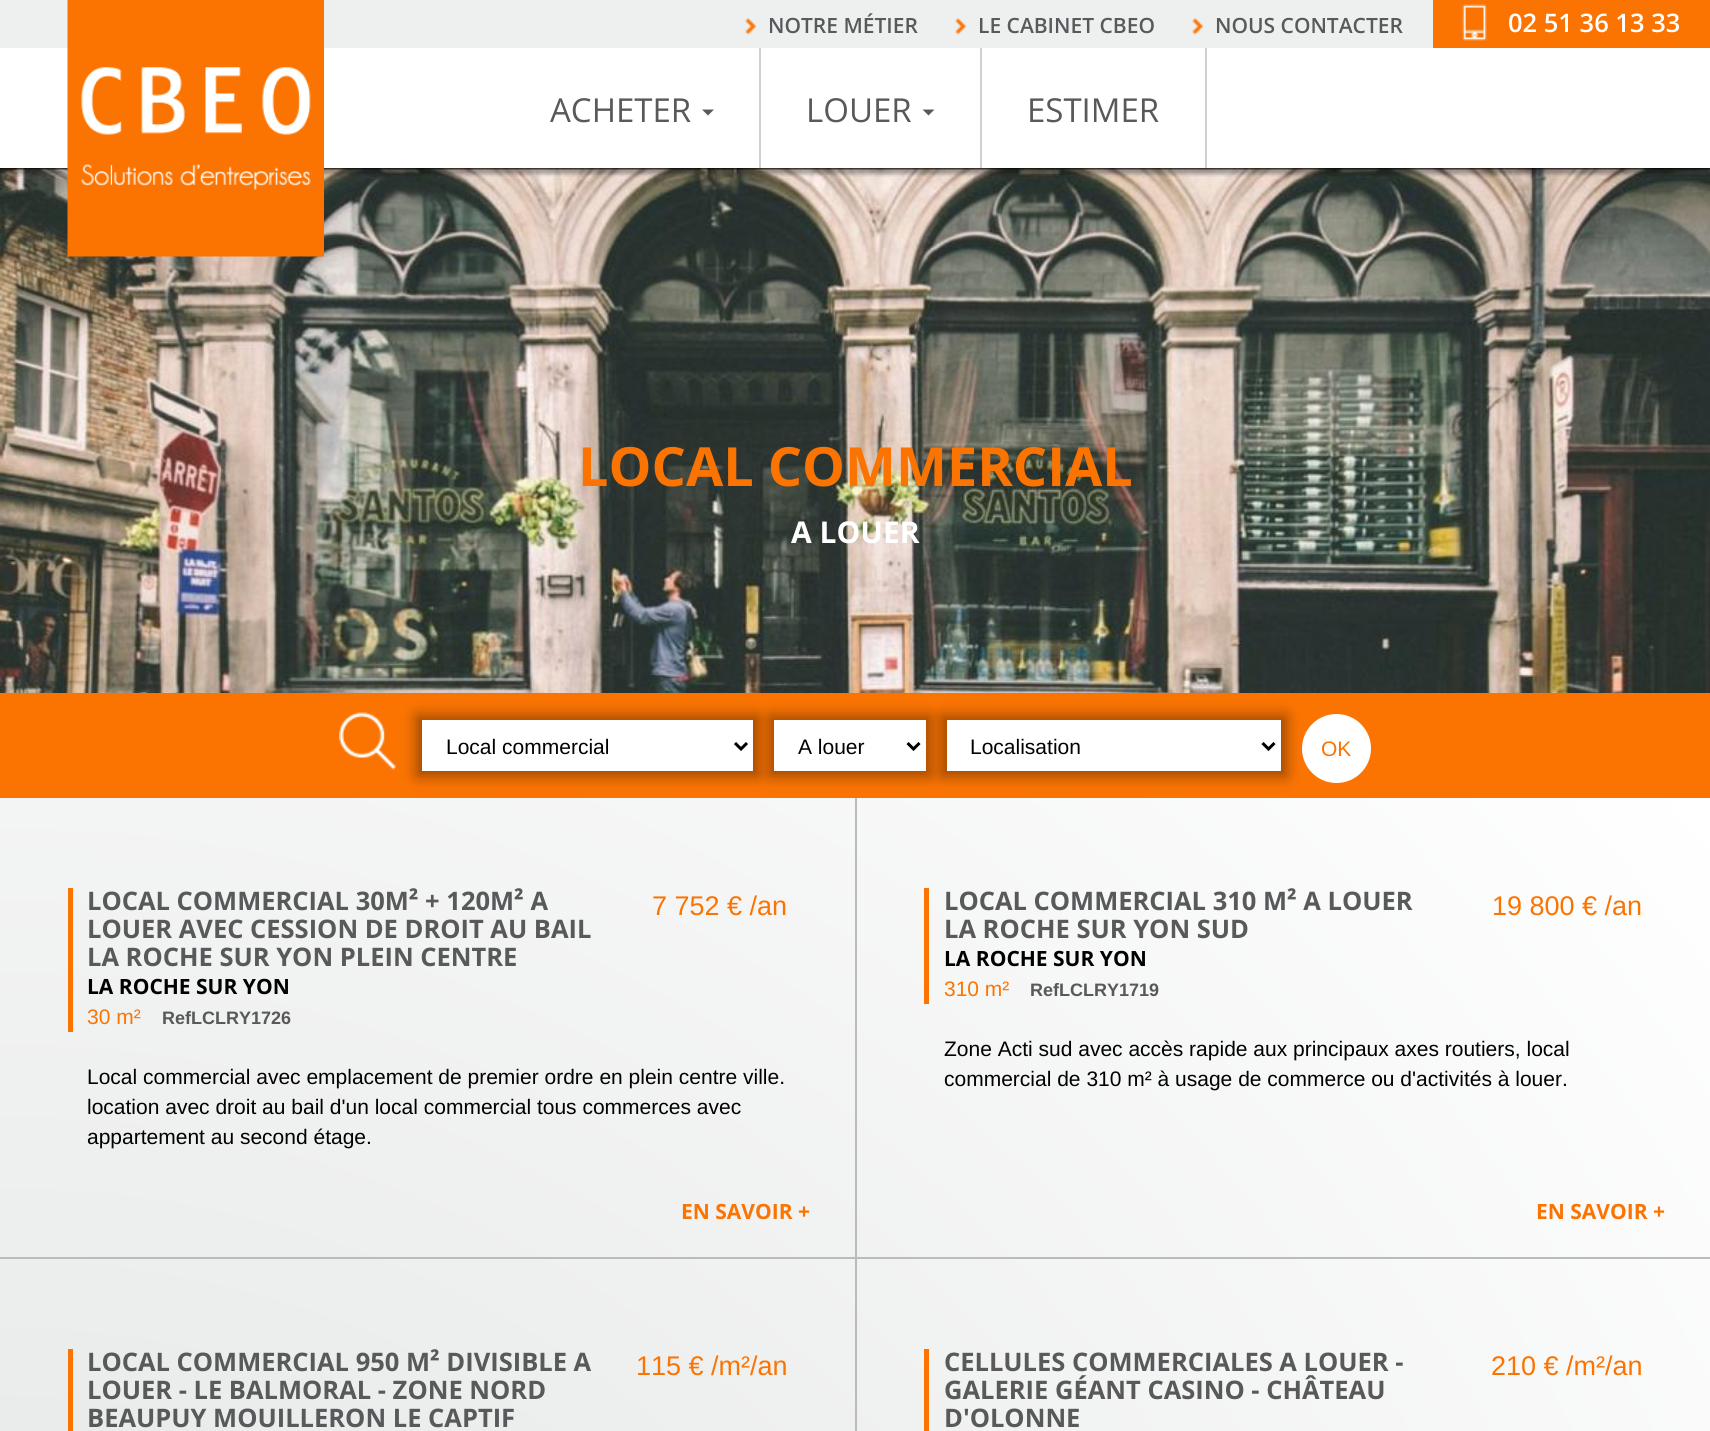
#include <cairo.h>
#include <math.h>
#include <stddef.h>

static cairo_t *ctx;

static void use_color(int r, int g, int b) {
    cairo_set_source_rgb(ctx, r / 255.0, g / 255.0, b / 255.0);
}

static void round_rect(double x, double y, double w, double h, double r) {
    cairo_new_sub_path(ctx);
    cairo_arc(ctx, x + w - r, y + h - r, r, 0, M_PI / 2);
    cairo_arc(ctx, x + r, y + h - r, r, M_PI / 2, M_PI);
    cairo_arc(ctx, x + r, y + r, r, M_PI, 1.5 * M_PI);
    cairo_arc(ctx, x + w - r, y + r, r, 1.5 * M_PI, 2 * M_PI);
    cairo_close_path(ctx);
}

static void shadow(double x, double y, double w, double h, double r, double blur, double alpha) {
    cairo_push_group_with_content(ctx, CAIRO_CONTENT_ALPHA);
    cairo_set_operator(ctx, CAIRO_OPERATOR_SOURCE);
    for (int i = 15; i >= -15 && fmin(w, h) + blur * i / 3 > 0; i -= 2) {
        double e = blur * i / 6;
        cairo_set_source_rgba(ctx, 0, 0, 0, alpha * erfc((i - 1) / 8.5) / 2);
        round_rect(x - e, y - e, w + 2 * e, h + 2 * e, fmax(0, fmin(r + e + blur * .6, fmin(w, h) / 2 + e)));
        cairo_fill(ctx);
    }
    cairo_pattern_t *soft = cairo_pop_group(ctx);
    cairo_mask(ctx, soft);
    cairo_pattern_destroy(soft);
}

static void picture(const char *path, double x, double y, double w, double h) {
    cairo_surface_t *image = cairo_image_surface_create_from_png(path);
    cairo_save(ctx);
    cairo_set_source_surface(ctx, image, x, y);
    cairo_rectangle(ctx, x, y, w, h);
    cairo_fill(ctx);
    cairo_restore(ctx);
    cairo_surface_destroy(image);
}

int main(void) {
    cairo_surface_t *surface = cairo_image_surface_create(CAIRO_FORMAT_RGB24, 1710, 1431);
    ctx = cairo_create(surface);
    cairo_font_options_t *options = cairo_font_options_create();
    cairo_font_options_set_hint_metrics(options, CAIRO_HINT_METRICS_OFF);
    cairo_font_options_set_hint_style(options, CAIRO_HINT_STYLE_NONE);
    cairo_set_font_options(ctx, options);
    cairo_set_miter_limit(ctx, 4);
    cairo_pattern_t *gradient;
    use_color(255, 255, 255);
    cairo_paint(ctx);
    picture("img5.png", 0, 168, 1710, 525);
    cairo_save(ctx);
    cairo_rectangle(ctx, 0, 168, 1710, 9);
    cairo_clip(ctx);
    use_color(0, 0, 0);
    shadow(-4, 3, 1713, 171, 0, 2, 0.33);
    cairo_restore(ctx);
    use_color(238, 239, 239);
    cairo_rectangle(ctx, 0, 0, 1433, 48);
    cairo_fill(ctx);
    picture("img1.png", 745, 18, 11, 17);
    cairo_select_font_face(ctx, "Open Sans SemiBold", CAIRO_FONT_SLANT_NORMAL, CAIRO_FONT_WEIGHT_NORMAL);
    cairo_set_font_size(ctx, 21);
    use_color(88, 89, 91);
    cairo_move_to(ctx, 768, 33);
    cairo_show_text(ctx, "NOTRE MÉTIER");
    picture("img2.png", 955, 18, 11, 17);
    cairo_move_to(ctx, 978, 33);
    cairo_show_text(ctx, "LE CABINET CBEO");
    picture("img1.png", 1192, 18, 11, 17);
    cairo_move_to(ctx, 1215, 33);
    cairo_show_text(ctx, "NOUS CONTACTER");
    use_color(251, 116, 2);
    cairo_rectangle(ctx, 1433, 0, 277, 48);
    cairo_fill(ctx);
    picture("img3.png", 1462, 4, 25, 37);
    cairo_set_font_size(ctx, 25.5);
    use_color(255, 255, 255);
    cairo_move_to(ctx, 1508, 32);
    cairo_show_text(ctx, "02 51 36 13 33");
    picture("img4.png", 67, 0, 257, 257);
    cairo_select_font_face(ctx, "Open Sans", CAIRO_FONT_SLANT_NORMAL, CAIRO_FONT_WEIGHT_NORMAL);
    cairo_set_font_size(ctx, 33);
    use_color(88, 89, 91);
    cairo_move_to(ctx, 550, 122);
    cairo_show_text(ctx, "ACHETER");
    cairo_new_path(ctx);
    cairo_move_to(ctx, 702, 109.5);
    cairo_line_to(ctx, 714, 109.5);
    cairo_line_to(ctx, 708, 115.5);
    cairo_close_path(ctx);
    cairo_fill(ctx);
    use_color(206, 208, 209);
    cairo_rectangle(ctx, 759, 48, 2, 120);
    cairo_fill(ctx);
    use_color(88, 89, 91);
    cairo_move_to(ctx, 806, 122);
    cairo_show_text(ctx, "LOUER");
    cairo_new_path(ctx);
    cairo_move_to(ctx, 922.5, 109.5);
    cairo_line_to(ctx, 934.5, 109.5);
    cairo_line_to(ctx, 928.5, 115.5);
    cairo_close_path(ctx);
    cairo_fill(ctx);
    use_color(206, 208, 209);
    cairo_rectangle(ctx, 980, 48, 2, 120);
    cairo_fill(ctx);
    use_color(88, 89, 91);
    cairo_move_to(ctx, 1027, 122);
    cairo_show_text(ctx, "ESTIMER");
    use_color(206, 208, 209);
    cairo_rectangle(ctx, 1205, 48, 2, 120);
    cairo_fill(ctx);
    cairo_select_font_face(ctx, "Open Sans", CAIRO_FONT_SLANT_NORMAL, CAIRO_FONT_WEIGHT_BOLD);
    cairo_set_font_size(ctx, 54);
    use_color(251, 116, 2);
    cairo_move_to(ctx, 578, 486);
    cairo_show_text(ctx, "LOCAL COMMERCIAL");
    cairo_set_font_size(ctx, 30);
    use_color(255, 255, 255);
    cairo_move_to(ctx, 791, 543);
    cairo_show_text(ctx, "A LOUER");
    use_color(251, 116, 2);
    cairo_rectangle(ctx, 0, 693, 1710, 105);
    cairo_fill(ctx);
    picture("img6.png", 339, 712, 57, 58);
    gradient = cairo_pattern_create_radial(0, 2238, 0, 0, 2238, 2236);
    cairo_pattern_add_color_stop_rgba(gradient, 0, 0.871, 0.878, 0.878, 1);
    cairo_pattern_add_color_stop_rgba(gradient, 1, 1, 1, 1, 1);
    cairo_set_source(ctx, gradient);
    cairo_pattern_destroy(gradient);
    cairo_rectangle(ctx, 0, 798, 1710, 633);
    cairo_fill(ctx);
    use_color(0, 0, 0);
    shadow(417, 716, 341, 60, 0, 7.5, 0.4);
    use_color(255, 255, 255);
    cairo_rectangle(ctx, 422, 720, 331, 51);
    cairo_fill(ctx);
    cairo_new_path(ctx);
    cairo_move_to(ctx, 735, 743);
    cairo_line_to(ctx, 741, 749);
    cairo_line_to(ctx, 747, 743);
    use_color(0, 0, 0);
    cairo_set_line_width(ctx, 3);
    cairo_stroke(ctx);
    cairo_select_font_face(ctx, "Liberation Sans", CAIRO_FONT_SLANT_NORMAL, CAIRO_FONT_WEIGHT_NORMAL);
    cairo_set_font_size(ctx, 21);
    cairo_move_to(ctx, 446, 754);
    cairo_show_text(ctx, "Local commercial");
    use_color(185, 187, 189);
    cairo_rectangle(ctx, 855, 798, 2, 459);
    cairo_fill(ctx);
    use_color(0, 0, 0);
    shadow(770, 716, 160, 60, 0, 7.5, 0.4);
    use_color(255, 255, 255);
    cairo_rectangle(ctx, 774, 720, 152, 51);
    cairo_fill(ctx);
    cairo_new_path(ctx);
    cairo_move_to(ctx, 907.5, 743);
    cairo_line_to(ctx, 913.5, 749);
    cairo_line_to(ctx, 919.5, 743);
    use_color(0, 0, 0);
    cairo_stroke(ctx);
    cairo_move_to(ctx, 798, 754);
    cairo_show_text(ctx, "A louer");
    use_color(0, 0, 0);
    shadow(942, 716, 344, 60, 0, 7.5, 0.4);
    use_color(255, 255, 255);
    cairo_rectangle(ctx, 947, 720, 334, 51);
    cairo_fill(ctx);
    cairo_new_path(ctx);
    cairo_move_to(ctx, 1262.5, 743);
    cairo_line_to(ctx, 1268.5, 749);
    cairo_line_to(ctx, 1274.5, 743);
    use_color(0, 0, 0);
    cairo_stroke(ctx);
    cairo_move_to(ctx, 970, 754);
    cairo_show_text(ctx, "Localisation");
    use_color(255, 255, 255);
    cairo_new_path(ctx);
    cairo_arc(ctx, 1336.5, 748.5, 33.5, 0, 2 * M_PI);
    cairo_fill_preserve(ctx);
    cairo_set_line_width(ctx, 2);
    cairo_stroke(ctx);
    use_color(251, 116, 2);
    cairo_move_to(ctx, 1321, 756);
    cairo_show_text(ctx, "OK");
    use_color(185, 187, 189);
    cairo_rectangle(ctx, 0, 1257, 1710, 2);
    cairo_fill(ctx);
    use_color(251, 116, 2);
    cairo_rectangle(ctx, 68, 888, 5, 144);
    cairo_fill(ctx);
    cairo_select_font_face(ctx, "Open Sans", CAIRO_FONT_SLANT_NORMAL, CAIRO_FONT_WEIGHT_BOLD);
    cairo_set_font_size(ctx, 25.5);
    use_color(88, 89, 91);
    cairo_move_to(ctx, 87, 910);
    cairo_show_text(ctx, "LOCAL COMMERCIAL 30M² + 120M² A");
    cairo_move_to(ctx, 87, 938);
    cairo_show_text(ctx, "LOUER AVEC CESSION DE DROIT AU BAIL");
    cairo_move_to(ctx, 87, 966);
    cairo_show_text(ctx, "LA ROCHE SUR YON PLEIN CENTRE");
    cairo_set_font_size(ctx, 21);
    use_color(0, 0, 0);
    cairo_move_to(ctx, 87, 994);
    cairo_show_text(ctx, "LA ROCHE SUR YON");
    cairo_select_font_face(ctx, "Liberation Sans", CAIRO_FONT_SLANT_NORMAL, CAIRO_FONT_WEIGHT_NORMAL);
    use_color(251, 116, 2);
    cairo_move_to(ctx, 87, 1024);
    cairo_show_text(ctx, "30 m²");
    cairo_select_font_face(ctx, "Liberation Sans", CAIRO_FONT_SLANT_NORMAL, CAIRO_FONT_WEIGHT_BOLD);
    cairo_set_font_size(ctx, 18);
    use_color(88, 89, 91);
    cairo_move_to(ctx, 162, 1024);
    cairo_show_text(ctx, "RefLCLRY1726");
    cairo_select_font_face(ctx, "Liberation Sans", CAIRO_FONT_SLANT_NORMAL, CAIRO_FONT_WEIGHT_NORMAL);
    cairo_set_font_size(ctx, 27);
    use_color(251, 116, 2);
    cairo_move_to(ctx, 652, 915);
    cairo_show_text(ctx, "7 752 € /an");
    cairo_set_font_size(ctx, 21);
    use_color(0, 0, 0);
    cairo_move_to(ctx, 87, 1084);
    cairo_show_text(ctx, "Local commercial avec emplacement de premier ordre en plein centre ville.");
    cairo_move_to(ctx, 87, 1114);
    cairo_show_text(ctx, "location avec droit au bail d'un local commercial tous commerces avec");
    cairo_move_to(ctx, 87, 1144);
    cairo_show_text(ctx, "appartement au second étage.");
    cairo_select_font_face(ctx, "Open Sans", CAIRO_FONT_SLANT_NORMAL, CAIRO_FONT_WEIGHT_BOLD);
    use_color(251, 116, 2);
    cairo_move_to(ctx, 681, 1219);
    cairo_show_text(ctx, "EN SAVOIR +");
    cairo_rectangle(ctx, 924, 888, 5, 116);
    cairo_fill(ctx);
    cairo_set_font_size(ctx, 25.5);
    use_color(88, 89, 91);
    cairo_move_to(ctx, 944, 910);
    cairo_show_text(ctx, "LOCAL COMMERCIAL 310 M² A LOUER");
    cairo_move_to(ctx, 944, 938);
    cairo_show_text(ctx, "LA ROCHE SUR YON SUD");
    cairo_set_font_size(ctx, 21);
    use_color(0, 0, 0);
    cairo_move_to(ctx, 944, 966);
    cairo_show_text(ctx, "LA ROCHE SUR YON");
    cairo_select_font_face(ctx, "Liberation Sans", CAIRO_FONT_SLANT_NORMAL, CAIRO_FONT_WEIGHT_NORMAL);
    use_color(251, 116, 2);
    cairo_move_to(ctx, 944, 996);
    cairo_show_text(ctx, "310 m²");
    cairo_select_font_face(ctx, "Liberation Sans", CAIRO_FONT_SLANT_NORMAL, CAIRO_FONT_WEIGHT_BOLD);
    cairo_set_font_size(ctx, 18);
    use_color(88, 89, 91);
    cairo_move_to(ctx, 1030, 996);
    cairo_show_text(ctx, "RefLCLRY1719");
    cairo_select_font_face(ctx, "Liberation Sans", CAIRO_FONT_SLANT_NORMAL, CAIRO_FONT_WEIGHT_NORMAL);
    cairo_set_font_size(ctx, 27);
    use_color(251, 116, 2);
    cairo_move_to(ctx, 1492, 915);
    cairo_show_text(ctx, "19 800 € /an");
    cairo_set_font_size(ctx, 21);
    use_color(0, 0, 0);
    cairo_move_to(ctx, 944, 1056);
    cairo_show_text(ctx, "Zone Acti sud avec accès rapide aux principaux axes routiers, local");
    cairo_move_to(ctx, 944, 1086);
    cairo_show_text(ctx, "commercial de 310 m² à usage de commerce ou d'activités à louer.");
    cairo_select_font_face(ctx, "Open Sans", CAIRO_FONT_SLANT_NORMAL, CAIRO_FONT_WEIGHT_BOLD);
    use_color(251, 116, 2);
    cairo_move_to(ctx, 1536, 1219);
    cairo_show_text(ctx, "EN SAVOIR +");
    cairo_rectangle(ctx, 68, 1349, 5, 82);
    cairo_fill(ctx);
    cairo_set_font_size(ctx, 25.5);
    use_color(88, 89, 91);
    cairo_move_to(ctx, 87, 1371);
    cairo_show_text(ctx, "LOCAL COMMERCIAL 950 M² DIVISIBLE A");
    cairo_move_to(ctx, 87, 1399);
    cairo_show_text(ctx, "LOUER - LE BALMORAL - ZONE NORD");
    cairo_move_to(ctx, 87, 1427);
    cairo_show_text(ctx, "BEAUPUY MOUILLERON LE CAPTIF");
    cairo_select_font_face(ctx, "Liberation Sans", CAIRO_FONT_SLANT_NORMAL, CAIRO_FONT_WEIGHT_NORMAL);
    cairo_set_font_size(ctx, 27);
    use_color(251, 116, 2);
    cairo_move_to(ctx, 636, 1375);
    cairo_show_text(ctx, "115 € /m²/an");
    use_color(185, 187, 189);
    cairo_rectangle(ctx, 855, 1259, 2, 172);
    cairo_fill(ctx);
    use_color(251, 116, 2);
    cairo_rectangle(ctx, 924, 1349, 5, 82);
    cairo_fill(ctx);
    cairo_select_font_face(ctx, "Open Sans", CAIRO_FONT_SLANT_NORMAL, CAIRO_FONT_WEIGHT_BOLD);
    cairo_set_font_size(ctx, 25.5);
    use_color(88, 89, 91);
    cairo_move_to(ctx, 944, 1371);
    cairo_show_text(ctx, "CELLULES COMMERCIALES A LOUER -");
    cairo_move_to(ctx, 944, 1399);
    cairo_show_text(ctx, "GALERIE GÉANT CASINO - CHÂTEAU");
    cairo_move_to(ctx, 944, 1427);
    cairo_show_text(ctx, "D'OLONNE");
    cairo_select_font_face(ctx, "Liberation Sans", CAIRO_FONT_SLANT_NORMAL, CAIRO_FONT_WEIGHT_NORMAL);
    cairo_set_font_size(ctx, 27);
    use_color(251, 116, 2);
    cairo_move_to(ctx, 1491, 1375);
    cairo_show_text(ctx, "210 € /m²/an");
    cairo_surface_write_to_png(surface, "result.png");
    cairo_font_options_destroy(options);
    cairo_destroy(ctx);
    cairo_surface_destroy(surface);
    return 0;
}
